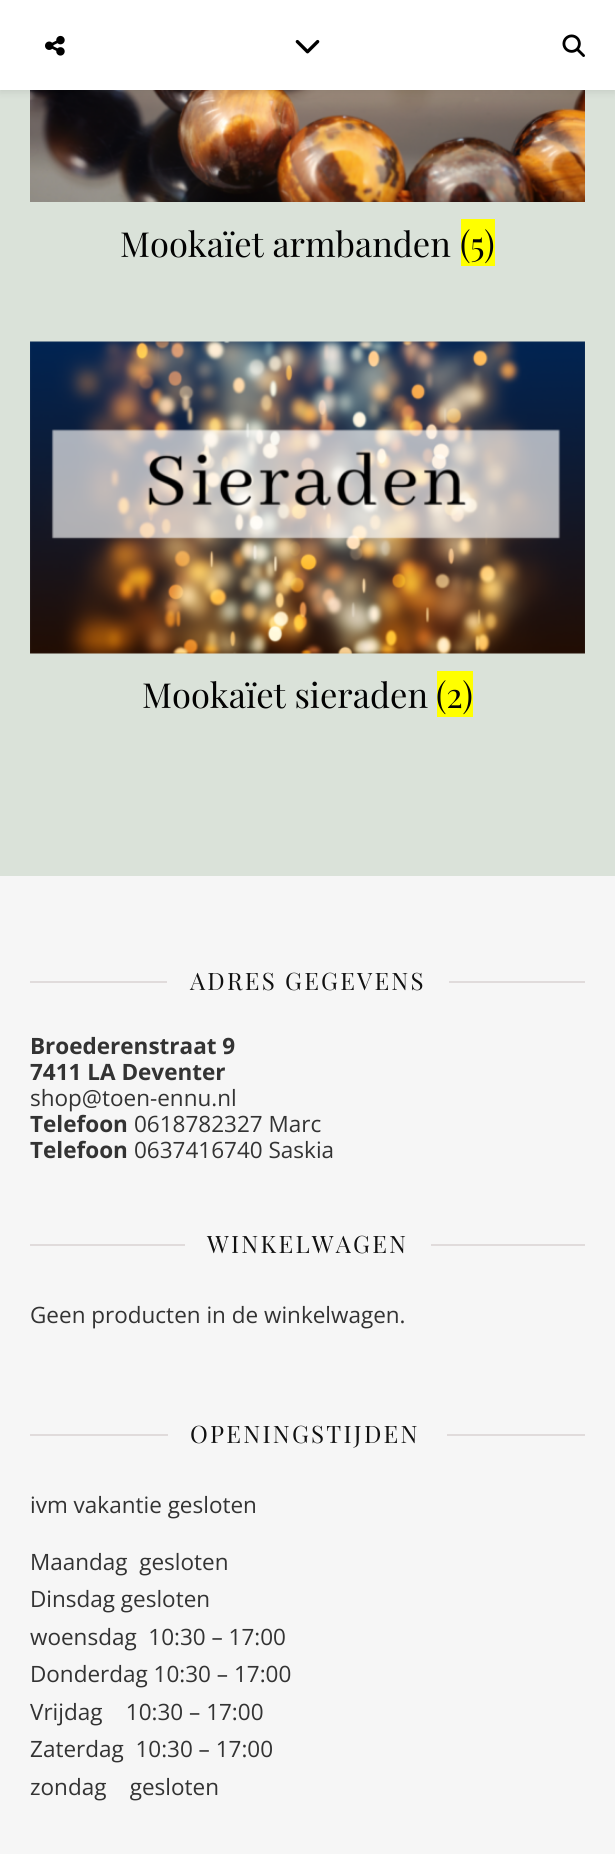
#include <cairo.h>
#include <math.h>
#include <stddef.h>

static cairo_t *ctx;

static void use_color(int r, int g, int b) {
    cairo_set_source_rgb(ctx, r / 255.0, g / 255.0, b / 255.0);
}

static void spaced_text(double x, double y, const char *s, double letter, double word) {
    cairo_move_to(ctx, x, y);
    while (*s) {
        char ch[5] = {0};
        int n = 0;
        do ch[n++] = *s++; while ((*s & 0xC0) == 0x80);
        cairo_show_text(ctx, ch);
        cairo_rel_move_to(ctx, letter + word * (*ch == ' '), 0);
    }
}

static void round_rect(double x, double y, double w, double h, double r) {
    cairo_new_sub_path(ctx);
    cairo_arc(ctx, x + w - r, y + h - r, r, 0, M_PI / 2);
    cairo_arc(ctx, x + r, y + h - r, r, M_PI / 2, M_PI);
    cairo_arc(ctx, x + r, y + r, r, M_PI, 1.5 * M_PI);
    cairo_arc(ctx, x + w - r, y + r, r, 1.5 * M_PI, 2 * M_PI);
    cairo_close_path(ctx);
}

static void shadow(double x, double y, double w, double h, double r, double blur, double alpha) {
    cairo_push_group_with_content(ctx, CAIRO_CONTENT_ALPHA);
    cairo_set_operator(ctx, CAIRO_OPERATOR_SOURCE);
    for (int i = 15; i >= -15 && fmin(w, h) + blur * i / 3 > 0; i -= 2) {
        double e = blur * i / 6;
        cairo_set_source_rgba(ctx, 0, 0, 0, alpha * erfc((i - 1) / 8.5) / 2);
        round_rect(x - e, y - e, w + 2 * e, h + 2 * e, fmax(0, fmin(r + e + blur * .6, fmin(w, h) / 2 + e)));
        cairo_fill(ctx);
    }
    cairo_pattern_t *soft = cairo_pop_group(ctx);
    cairo_mask(ctx, soft);
    cairo_pattern_destroy(soft);
}

static void picture(const char *path, double x, double y, double w, double h) {
    cairo_surface_t *image = cairo_image_surface_create_from_png(path);
    cairo_save(ctx);
    cairo_set_source_surface(ctx, image, x, y);
    cairo_rectangle(ctx, x, y, w, h);
    cairo_fill(ctx);
    cairo_restore(ctx);
    cairo_surface_destroy(image);
}

int main(void) {
    cairo_surface_t *surface = cairo_image_surface_create(CAIRO_FORMAT_RGB24, 615, 1854);
    ctx = cairo_create(surface);
    cairo_font_options_t *options = cairo_font_options_create();
    cairo_font_options_set_hint_metrics(options, CAIRO_HINT_METRICS_OFF);
    cairo_font_options_set_hint_style(options, CAIRO_HINT_STYLE_NONE);
    cairo_set_font_options(ctx, options);
    cairo_set_miter_limit(ctx, 4);
    use_color(218, 226, 217);
    cairo_paint(ctx);
    picture("img4.png", 30, 90, 555, 112);
    use_color(0, 0, 0);
    shadow(0, 2, 615, 90, 0, 4, 0.1);
    use_color(255, 255, 255);
    cairo_rectangle(ctx, 0, 0, 615, 90);
    cairo_fill(ctx);
    picture("img1.png", 45, 35, 20, 21);
    picture("img2.png", 295, 39, 25, 15);
    picture("img3.png", 562, 34, 23, 23);
    cairo_select_font_face(ctx, "Playfair Display", CAIRO_FONT_SLANT_NORMAL, CAIRO_FONT_WEIGHT_NORMAL);
    cairo_set_font_size(ctx, 34.5);
    use_color(3, 3, 3);
    cairo_move_to(ctx, 120, 257);
    cairo_show_text(ctx, "Mookaïet armbanden");
    use_color(255, 255, 0);
    cairo_rectangle(ctx, 461, 219, 34, 47);
    cairo_fill(ctx);
    use_color(3, 3, 3);
    cairo_move_to(ctx, 460, 257);
    cairo_show_text(ctx, "(5)");
    picture("img5.png", 30, 341, 555, 313);
    cairo_move_to(ctx, 142, 708);
    cairo_show_text(ctx, "Mookaïet sieraden");
    use_color(255, 255, 0);
    cairo_rectangle(ctx, 437, 671, 36, 46);
    cairo_fill(ctx);
    use_color(3, 3, 3);
    cairo_move_to(ctx, 436, 708);
    cairo_show_text(ctx, "(2)");
    use_color(246, 246, 246);
    cairo_rectangle(ctx, 0, 876, 615, 978);
    cairo_fill(ctx);
    use_color(224, 219, 219);
    cairo_rectangle(ctx, 30, 981, 137, 2);
    cairo_fill(ctx);
    cairo_set_font_size(ctx, 24);
    use_color(17, 17, 17);
    spaced_text(190, 990, "ADRES GEGEVENS", 2.25, 0);
    use_color(224, 219, 219);
    cairo_rectangle(ctx, 449, 981, 136, 2);
    cairo_fill(ctx);
    cairo_select_font_face(ctx, "Open Sans", CAIRO_FONT_SLANT_NORMAL, CAIRO_FONT_WEIGHT_BOLD);
    cairo_set_font_size(ctx, 22.5);
    use_color(51, 51, 51);
    cairo_move_to(ctx, 30, 1054);
    cairo_show_text(ctx, "Broederenstraat 9");
    cairo_move_to(ctx, 30, 1080);
    cairo_show_text(ctx, "7411 LA Deventer");
    cairo_select_font_face(ctx, "Open Sans", CAIRO_FONT_SLANT_NORMAL, CAIRO_FONT_WEIGHT_NORMAL);
    cairo_move_to(ctx, 30, 1106);
    cairo_show_text(ctx, "shop@toen-ennu.nl");
    cairo_select_font_face(ctx, "Open Sans", CAIRO_FONT_SLANT_NORMAL, CAIRO_FONT_WEIGHT_BOLD);
    cairo_move_to(ctx, 30, 1132);
    cairo_show_text(ctx, "Telefoon");
    cairo_select_font_face(ctx, "Open Sans", CAIRO_FONT_SLANT_NORMAL, CAIRO_FONT_WEIGHT_NORMAL);
    cairo_move_to(ctx, 134, 1132);
    cairo_show_text(ctx, "0618782327 Marc");
    cairo_select_font_face(ctx, "Open Sans", CAIRO_FONT_SLANT_NORMAL, CAIRO_FONT_WEIGHT_BOLD);
    cairo_move_to(ctx, 30, 1158);
    cairo_show_text(ctx, "Telefoon");
    cairo_select_font_face(ctx, "Open Sans", CAIRO_FONT_SLANT_NORMAL, CAIRO_FONT_WEIGHT_NORMAL);
    cairo_move_to(ctx, 134, 1158);
    cairo_show_text(ctx, "0637416740 Saskia");
    use_color(224, 219, 219);
    cairo_rectangle(ctx, 30, 1244, 155, 2);
    cairo_fill(ctx);
    cairo_select_font_face(ctx, "Playfair Display", CAIRO_FONT_SLANT_NORMAL, CAIRO_FONT_WEIGHT_NORMAL);
    cairo_set_font_size(ctx, 24);
    use_color(17, 17, 17);
    spaced_text(207, 1253, "WINKELWAGEN", 2.25, 0);
    use_color(224, 219, 219);
    cairo_rectangle(ctx, 431, 1244, 154, 2);
    cairo_fill(ctx);
    cairo_select_font_face(ctx, "Open Sans", CAIRO_FONT_SLANT_NORMAL, CAIRO_FONT_WEIGHT_NORMAL);
    cairo_set_font_size(ctx, 22.5);
    use_color(51, 51, 51);
    cairo_move_to(ctx, 30, 1323);
    cairo_show_text(ctx, "Geen producten in de winkelwagen.");
    use_color(224, 219, 219);
    cairo_rectangle(ctx, 30, 1434, 138, 2);
    cairo_fill(ctx);
    cairo_select_font_face(ctx, "Playfair Display", CAIRO_FONT_SLANT_NORMAL, CAIRO_FONT_WEIGHT_NORMAL);
    cairo_set_font_size(ctx, 24);
    use_color(17, 17, 17);
    spaced_text(190, 1443, "OPENINGSTIJDEN", 2.25, 0);
    use_color(224, 219, 219);
    cairo_rectangle(ctx, 447, 1434, 138, 2);
    cairo_fill(ctx);
    cairo_select_font_face(ctx, "Open Sans", CAIRO_FONT_SLANT_NORMAL, CAIRO_FONT_WEIGHT_NORMAL);
    cairo_set_font_size(ctx, 22.5);
    use_color(51, 51, 51);
    cairo_move_to(ctx, 30, 1513);
    cairo_show_text(ctx, "ivm vakantie gesloten");
    cairo_move_to(ctx, 30, 1570);
    cairo_show_text(ctx, "Maandag  gesloten");
    cairo_move_to(ctx, 30, 1607);
    cairo_show_text(ctx, "Dinsdag gesloten");
    cairo_move_to(ctx, 30, 1645);
    cairo_show_text(ctx, "woensdag  10:30 – 17:00");
    cairo_move_to(ctx, 30, 1682);
    cairo_show_text(ctx, "Donderdag 10:30 – 17:00");
    cairo_move_to(ctx, 30, 1720);
    cairo_show_text(ctx, "Vrijdag    10:30 – 17:00");
    cairo_move_to(ctx, 30, 1757);
    cairo_show_text(ctx, "Zaterdag  10:30 – 17:00");
    cairo_move_to(ctx, 30, 1795);
    cairo_show_text(ctx, "zondag    gesloten");
    cairo_surface_write_to_png(surface, "result.png");
    cairo_font_options_destroy(options);
    cairo_destroy(ctx);
    cairo_surface_destroy(surface);
    return 0;
}
